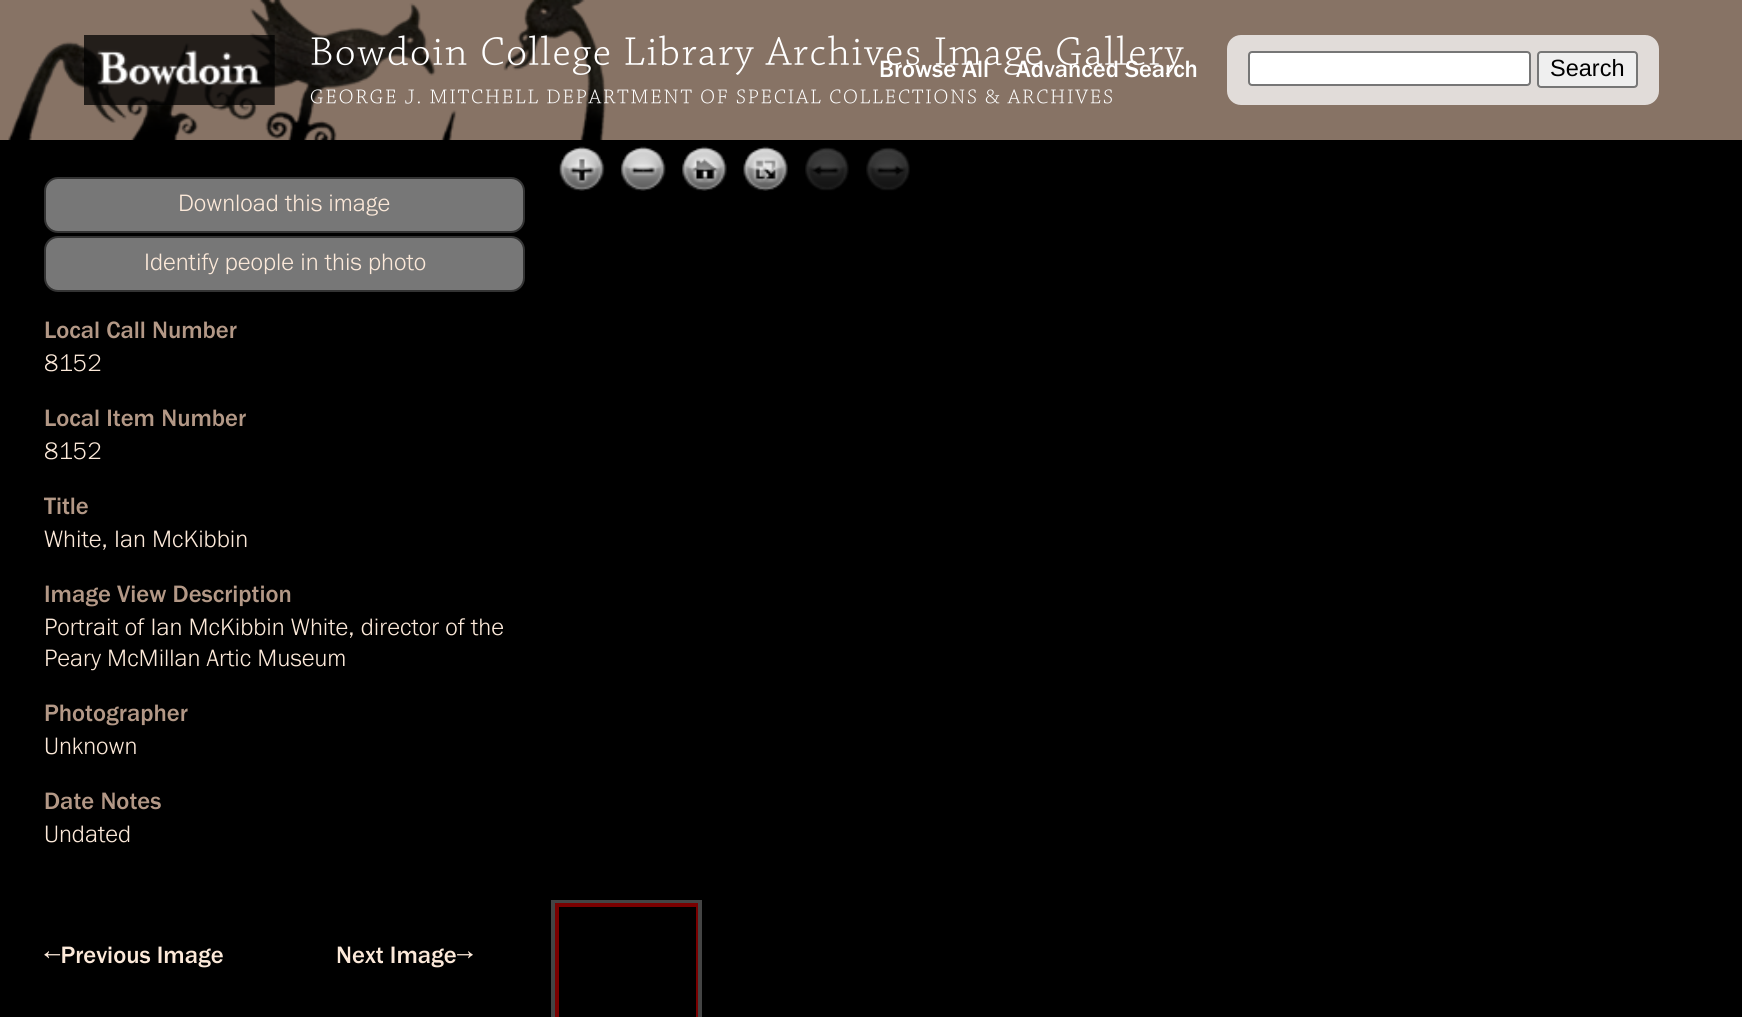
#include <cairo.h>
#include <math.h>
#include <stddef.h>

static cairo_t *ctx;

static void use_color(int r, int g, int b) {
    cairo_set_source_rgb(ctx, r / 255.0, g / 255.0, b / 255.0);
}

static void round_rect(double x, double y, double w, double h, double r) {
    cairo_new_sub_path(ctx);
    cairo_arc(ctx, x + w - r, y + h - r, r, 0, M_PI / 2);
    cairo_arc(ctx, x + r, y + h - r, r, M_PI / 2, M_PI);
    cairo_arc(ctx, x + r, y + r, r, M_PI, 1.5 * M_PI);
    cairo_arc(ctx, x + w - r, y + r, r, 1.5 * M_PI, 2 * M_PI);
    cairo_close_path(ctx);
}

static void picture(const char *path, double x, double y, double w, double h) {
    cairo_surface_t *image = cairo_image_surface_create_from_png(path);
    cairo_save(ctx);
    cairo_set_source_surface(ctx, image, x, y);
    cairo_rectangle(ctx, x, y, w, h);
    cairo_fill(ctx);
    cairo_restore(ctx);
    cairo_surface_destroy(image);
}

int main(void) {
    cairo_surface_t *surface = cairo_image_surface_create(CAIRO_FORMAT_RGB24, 1742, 1017);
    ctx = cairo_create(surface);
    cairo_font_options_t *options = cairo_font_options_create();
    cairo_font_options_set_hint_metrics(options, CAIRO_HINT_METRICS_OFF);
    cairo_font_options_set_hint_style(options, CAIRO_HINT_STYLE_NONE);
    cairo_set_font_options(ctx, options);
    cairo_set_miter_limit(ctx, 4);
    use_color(0, 0, 0);
    cairo_paint(ctx);
    use_color(135, 115, 101);
    cairo_rectangle(ctx, 0, 0, 1742, 140);
    cairo_fill(ctx);
    picture("img1.png", 8, 0, 598, 140);
    picture("img2.png", 84, 35, 191, 70);
    picture("img3.png", 311, 35, 873, 40);
    picture("img4.png", 310, 89, 802, 15);
    cairo_select_font_face(ctx, "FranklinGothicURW", CAIRO_FONT_SLANT_NORMAL, CAIRO_FONT_WEIGHT_NORMAL);
    cairo_set_font_size(ctx, 24.5);
    use_color(255, 255, 255);
    cairo_move_to(ctx, 879, 77);
    cairo_show_text(ctx, "Browse All");
    cairo_move_to(ctx, 1016, 77);
    cairo_show_text(ctx, "Advanced Search");
    use_color(225, 220, 217);
    round_rect(1227, 35, 432, 70, 14);
    cairo_fill(ctx);
    use_color(255, 255, 255);
    round_rect(1249, 52, 281, 33, 3);
    cairo_fill_preserve(ctx);
    use_color(118, 118, 118);
    cairo_stroke(ctx);
    use_color(239, 239, 239);
    round_rect(1538, 52, 99, 35, 3);
    cairo_fill_preserve(ctx);
    use_color(118, 118, 118);
    cairo_stroke(ctx);
    cairo_select_font_face(ctx, "Liberation Sans", CAIRO_FONT_SLANT_NORMAL, CAIRO_FONT_WEIGHT_NORMAL);
    cairo_set_font_size(ctx, 23.5);
    use_color(0, 0, 0);
    cairo_move_to(ctx, 1550, 76);
    cairo_show_text(ctx, "Search");
    use_color(119, 119, 119);
    round_rect(45, 178, 479, 54, 13);
    cairo_fill_preserve(ctx);
    use_color(51, 51, 51);
    cairo_stroke(ctx);
    cairo_select_font_face(ctx, "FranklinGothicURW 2", CAIRO_FONT_SLANT_NORMAL, CAIRO_FONT_WEIGHT_NORMAL);
    cairo_set_font_size(ctx, 24.6);
    use_color(252, 233, 217);
    cairo_move_to(ctx, 178, 211);
    cairo_show_text(ctx, "Download this image");
    use_color(119, 119, 119);
    round_rect(45, 237, 479, 54, 13);
    cairo_fill_preserve(ctx);
    use_color(51, 51, 51);
    cairo_stroke(ctx);
    use_color(252, 233, 217);
    cairo_move_to(ctx, 144, 270);
    cairo_show_text(ctx, "Identify people in this photo");
    cairo_select_font_face(ctx, "FranklinGothicURW", CAIRO_FONT_SLANT_NORMAL, CAIRO_FONT_WEIGHT_NORMAL);
    use_color(179, 152, 134);
    cairo_move_to(ctx, 44, 338);
    cairo_show_text(ctx, "Local Call Number");
    cairo_select_font_face(ctx, "FranklinGothicURW 2", CAIRO_FONT_SLANT_NORMAL, CAIRO_FONT_WEIGHT_NORMAL);
    use_color(252, 233, 217);
    cairo_move_to(ctx, 44, 371);
    cairo_show_text(ctx, "8152");
    cairo_select_font_face(ctx, "FranklinGothicURW", CAIRO_FONT_SLANT_NORMAL, CAIRO_FONT_WEIGHT_NORMAL);
    use_color(179, 152, 134);
    cairo_move_to(ctx, 44, 426);
    cairo_show_text(ctx, "Local Item Number");
    cairo_select_font_face(ctx, "FranklinGothicURW 2", CAIRO_FONT_SLANT_NORMAL, CAIRO_FONT_WEIGHT_NORMAL);
    use_color(252, 233, 217);
    cairo_move_to(ctx, 44, 459);
    cairo_show_text(ctx, "8152");
    cairo_save(ctx);
    cairo_rectangle(ctx, 44, 177, 507, 710);
    cairo_clip(ctx);
    cairo_select_font_face(ctx, "FranklinGothicURW", CAIRO_FONT_SLANT_NORMAL, CAIRO_FONT_WEIGHT_NORMAL);
    use_color(179, 152, 134);
    cairo_move_to(ctx, 44, 514);
    cairo_show_text(ctx, "Title");
    cairo_restore(ctx);
    cairo_move_to(ctx, 44, 547);
    cairo_show_text(ctx, "White, Ian McKibbin");
    cairo_select_font_face(ctx, "FranklinGothicURW", CAIRO_FONT_SLANT_NORMAL, CAIRO_FONT_WEIGHT_NORMAL);
    use_color(179, 152, 134);
    cairo_move_to(ctx, 44, 602);
    cairo_show_text(ctx, "Image View Description");
    cairo_select_font_face(ctx, "FranklinGothicURW 2", CAIRO_FONT_SLANT_NORMAL, CAIRO_FONT_WEIGHT_NORMAL);
    use_color(252, 233, 217);
    cairo_move_to(ctx, 44, 635);
    cairo_show_text(ctx, "Portrait of Ian McKibbin White, director of the");
    cairo_move_to(ctx, 44, 666);
    cairo_show_text(ctx, "Peary McMillan Artic Museum");
    cairo_select_font_face(ctx, "FranklinGothicURW", CAIRO_FONT_SLANT_NORMAL, CAIRO_FONT_WEIGHT_NORMAL);
    use_color(179, 152, 134);
    cairo_move_to(ctx, 44, 721);
    cairo_show_text(ctx, "Photographer");
    cairo_select_font_face(ctx, "FranklinGothicURW 2", CAIRO_FONT_SLANT_NORMAL, CAIRO_FONT_WEIGHT_NORMAL);
    use_color(252, 233, 217);
    cairo_move_to(ctx, 44, 754);
    cairo_show_text(ctx, "Unknown");
    cairo_select_font_face(ctx, "FranklinGothicURW", CAIRO_FONT_SLANT_NORMAL, CAIRO_FONT_WEIGHT_NORMAL);
    use_color(179, 152, 134);
    cairo_move_to(ctx, 44, 809);
    cairo_show_text(ctx, "Date Notes");
    cairo_select_font_face(ctx, "FranklinGothicURW 2", CAIRO_FONT_SLANT_NORMAL, CAIRO_FONT_WEIGHT_NORMAL);
    use_color(252, 233, 217);
    cairo_move_to(ctx, 44, 842);
    cairo_show_text(ctx, "Undated");
    picture("img5.png", 559, 146, 46, 45);
    picture("img6.png", 559, 146, 46, 45);
    picture("img7.png", 620, 146, 46, 45);
    picture("img8.png", 621, 146, 45, 45);
    picture("img9.png", 682, 146, 45, 45);
    picture("img10.png", 682, 146, 45, 45);
    picture("img11.png", 743, 146, 45, 45);
    picture("img12.png", 743, 146, 45, 45);
    picture("img14.png", 805, 148, 44, 43);
    picture("img13.png", 805, 147, 44, 43);
    picture("img16.png", 866, 148, 44, 43);
    picture("img15.png", 866, 147, 44, 43);
    cairo_rectangle(ctx, 553, 902, 147, 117);
    use_color(68, 68, 68);
    cairo_set_line_width(ctx, 4);
    cairo_stroke(ctx);
    cairo_save(ctx);
    cairo_rectangle(ctx, 555, 903, 143, 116);
    cairo_clip(ctx);
    cairo_rectangle(ctx, 557, 905, 141, 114);
    use_color(122, 0, 0);
    cairo_stroke(ctx);
    cairo_restore(ctx);
    cairo_select_font_face(ctx, "FranklinGothicURW", CAIRO_FONT_SLANT_NORMAL, CAIRO_FONT_WEIGHT_NORMAL);
    use_color(252, 233, 217);
    cairo_move_to(ctx, 44, 963);
    cairo_show_text(ctx, "←Previous Image");
    cairo_move_to(ctx, 336, 963);
    cairo_show_text(ctx, "Next Image→");
    cairo_surface_write_to_png(surface, "result.png");
    cairo_font_options_destroy(options);
    cairo_destroy(ctx);
    cairo_surface_destroy(surface);
    return 0;
}
